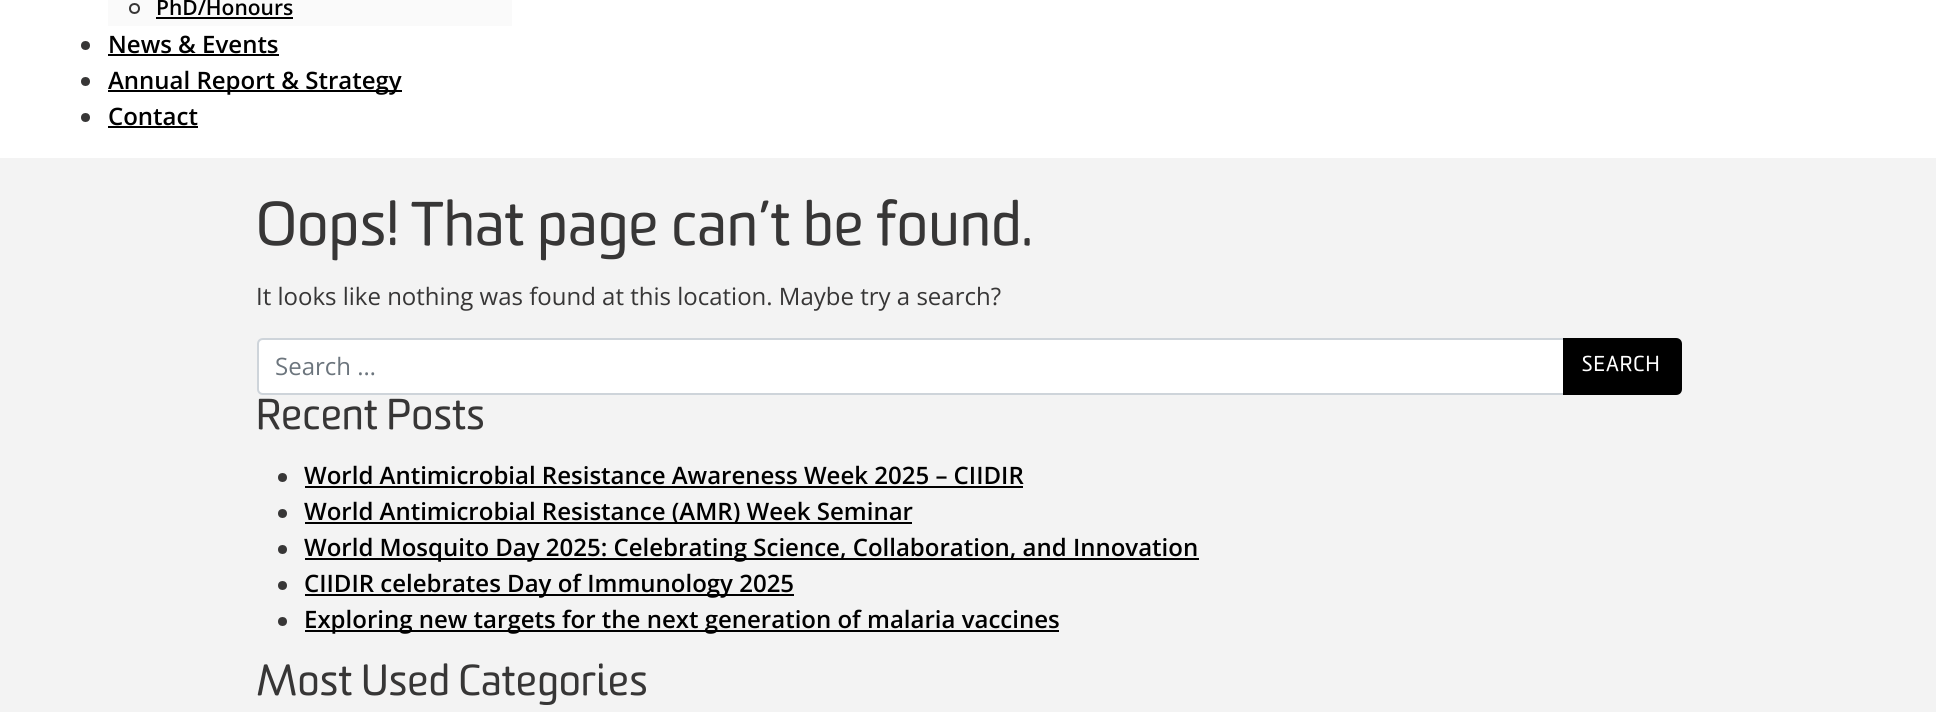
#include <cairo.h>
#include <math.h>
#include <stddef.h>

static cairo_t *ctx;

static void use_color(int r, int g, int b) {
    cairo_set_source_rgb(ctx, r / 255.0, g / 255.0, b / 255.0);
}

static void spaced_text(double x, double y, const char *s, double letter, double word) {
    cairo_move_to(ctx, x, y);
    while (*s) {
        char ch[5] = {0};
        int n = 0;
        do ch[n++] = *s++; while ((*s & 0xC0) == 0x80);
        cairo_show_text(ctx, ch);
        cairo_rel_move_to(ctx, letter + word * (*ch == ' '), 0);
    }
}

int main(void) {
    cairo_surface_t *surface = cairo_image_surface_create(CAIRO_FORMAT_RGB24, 1936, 712);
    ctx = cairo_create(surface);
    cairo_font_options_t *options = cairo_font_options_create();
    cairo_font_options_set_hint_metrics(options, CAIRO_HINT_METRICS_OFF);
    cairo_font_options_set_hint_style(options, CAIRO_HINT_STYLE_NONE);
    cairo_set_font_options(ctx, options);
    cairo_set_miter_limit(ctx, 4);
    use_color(243, 243, 243);
    cairo_paint(ctx);
    use_color(255, 255, 255);
    cairo_rectangle(ctx, 0, 0, 1936, 158);
    cairo_fill(ctx);
    use_color(250, 250, 250);
    cairo_rectangle(ctx, 108, 0, 404, 26);
    cairo_fill(ctx);
    cairo_arc(ctx, 134.5, 8.5, 4.5, 0, 2 * M_PI);
    use_color(55, 54, 54);
    cairo_stroke(ctx);
    cairo_select_font_face(ctx, "Open Sans SemiBold", CAIRO_FONT_SLANT_NORMAL, CAIRO_FONT_WEIGHT_NORMAL);
    cairo_set_font_size(ctx, 21);
    use_color(0, 0, 0);
    cairo_move_to(ctx, 156, 15);
    cairo_show_text(ctx, "PhD/Honours");
    cairo_rectangle(ctx, 156, 17, 137, 2);
    cairo_fill(ctx);
    use_color(55, 54, 54);
    cairo_arc(ctx, 85.5, 45.5, 4.5, 0, 2 * M_PI);
    cairo_fill(ctx);
    cairo_set_font_size(ctx, 24);
    use_color(0, 0, 0);
    cairo_move_to(ctx, 108, 53);
    cairo_show_text(ctx, "News & Events");
    cairo_rectangle(ctx, 108, 54, 171, 2);
    cairo_fill(ctx);
    use_color(55, 54, 54);
    cairo_arc(ctx, 85.5, 81.5, 4.5, 0, 2 * M_PI);
    cairo_fill(ctx);
    use_color(0, 0, 0);
    cairo_rectangle(ctx, 108, 90, 294, 2);
    cairo_fill(ctx);
    cairo_move_to(ctx, 108, 89);
    cairo_show_text(ctx, "Annual Report & Strategy");
    use_color(55, 54, 54);
    cairo_new_path(ctx);
    cairo_arc(ctx, 85.5, 117.5, 4.5, 0, 2 * M_PI);
    cairo_fill(ctx);
    use_color(0, 0, 0);
    cairo_move_to(ctx, 108, 125);
    cairo_show_text(ctx, "Contact");
    cairo_rectangle(ctx, 108, 126, 90, 2);
    cairo_fill(ctx);
    cairo_select_font_face(ctx, "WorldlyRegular", CAIRO_FONT_SLANT_NORMAL, CAIRO_FONT_WEIGHT_NORMAL);
    cairo_set_font_size(ctx, 60);
    use_color(55, 54, 54);
    cairo_move_to(ctx, 256, 245);
    cairo_show_text(ctx, "Oops! That page can’t be found.");
    cairo_select_font_face(ctx, "Open Sans", CAIRO_FONT_SLANT_NORMAL, CAIRO_FONT_WEIGHT_NORMAL);
    cairo_set_font_size(ctx, 24);
    cairo_move_to(ctx, 256, 305);
    cairo_show_text(ctx, "It looks like nothing was found at this location. Maybe try a search?");
    use_color(255, 255, 255);
    cairo_new_path(ctx);
    cairo_move_to(ctx, 263, 339);
    cairo_line_to(ctx, 1564, 339);
    cairo_line_to(ctx, 1564, 394);
    cairo_line_to(ctx, 263, 394);
    cairo_curve_to(ctx, 260, 394, 258, 392, 258, 389);
    cairo_line_to(ctx, 258, 344);
    cairo_curve_to(ctx, 258, 341, 260, 339, 263, 339);
    cairo_close_path(ctx);
    cairo_fill_preserve(ctx);
    use_color(206, 212, 218);
    cairo_stroke(ctx);
    use_color(108, 117, 125);
    cairo_move_to(ctx, 275, 375);
    cairo_show_text(ctx, "Search …");
    use_color(0, 0, 0);
    cairo_new_path(ctx);
    cairo_move_to(ctx, 1564, 339);
    cairo_line_to(ctx, 1676, 339);
    cairo_curve_to(ctx, 1679, 339, 1681, 341, 1681, 344);
    cairo_line_to(ctx, 1681, 389);
    cairo_curve_to(ctx, 1681, 392, 1679, 394, 1676, 394);
    cairo_line_to(ctx, 1564, 394);
    cairo_close_path(ctx);
    cairo_fill_preserve(ctx);
    cairo_stroke(ctx);
    cairo_select_font_face(ctx, "WorldlyRegular", CAIRO_FONT_SLANT_NORMAL, CAIRO_FONT_WEIGHT_NORMAL);
    cairo_set_font_size(ctx, 21);
    use_color(255, 255, 255);
    spaced_text(1582, 371, "SEARCH", 1, 0);
    cairo_set_font_size(ctx, 42);
    use_color(55, 54, 54);
    cairo_move_to(ctx, 256, 429);
    cairo_show_text(ctx, "Recent Posts");
    cairo_new_path(ctx);
    cairo_arc(ctx, 282.5, 477.5, 4.5, 0, 2 * M_PI);
    cairo_fill(ctx);
    cairo_select_font_face(ctx, "Open Sans SemiBold", CAIRO_FONT_SLANT_NORMAL, CAIRO_FONT_WEIGHT_NORMAL);
    cairo_set_font_size(ctx, 24);
    use_color(0, 0, 0);
    cairo_move_to(ctx, 304, 484);
    cairo_show_text(ctx, "World Antimicrobial Resistance Awareness Week 2025 – CIIDIR");
    cairo_rectangle(ctx, 305, 486, 718, 2);
    cairo_fill(ctx);
    use_color(55, 54, 54);
    cairo_arc(ctx, 282.5, 513.5, 4.5, 0, 2 * M_PI);
    cairo_fill(ctx);
    use_color(0, 0, 0);
    cairo_rectangle(ctx, 305, 522, 607, 2);
    cairo_fill(ctx);
    cairo_move_to(ctx, 304, 520);
    cairo_show_text(ctx, "World Antimicrobial Resistance (AMR) Week Seminar");
    use_color(55, 54, 54);
    cairo_new_path(ctx);
    cairo_arc(ctx, 282.5, 549.5, 4.5, 0, 2 * M_PI);
    cairo_fill(ctx);
    use_color(0, 0, 0);
    cairo_rectangle(ctx, 305, 558, 894, 2);
    cairo_fill(ctx);
    cairo_move_to(ctx, 304, 556);
    cairo_show_text(ctx, "World Mosquito Day 2025: Celebrating Science, Collaboration, and Innovation");
    use_color(55, 54, 54);
    cairo_new_path(ctx);
    cairo_arc(ctx, 282.5, 585.5, 4.5, 0, 2 * M_PI);
    cairo_fill(ctx);
    use_color(0, 0, 0);
    cairo_rectangle(ctx, 305, 594, 489, 2);
    cairo_fill(ctx);
    cairo_move_to(ctx, 304, 592);
    cairo_show_text(ctx, "CIIDIR celebrates Day of Immunology 2025");
    use_color(55, 54, 54);
    cairo_new_path(ctx);
    cairo_arc(ctx, 282.5, 621.5, 4.5, 0, 2 * M_PI);
    cairo_fill(ctx);
    use_color(0, 0, 0);
    cairo_rectangle(ctx, 305, 630, 754, 2);
    cairo_fill(ctx);
    cairo_move_to(ctx, 304, 628);
    cairo_show_text(ctx, "Exploring new targets for the next generation of malaria vaccines");
    cairo_select_font_face(ctx, "WorldlyRegular", CAIRO_FONT_SLANT_NORMAL, CAIRO_FONT_WEIGHT_NORMAL);
    cairo_set_font_size(ctx, 42);
    use_color(55, 54, 54);
    cairo_move_to(ctx, 256, 695);
    cairo_show_text(ctx, "Most Used Categories");
    cairo_surface_write_to_png(surface, "result.png");
    cairo_font_options_destroy(options);
    cairo_destroy(ctx);
    cairo_surface_destroy(surface);
    return 0;
}
